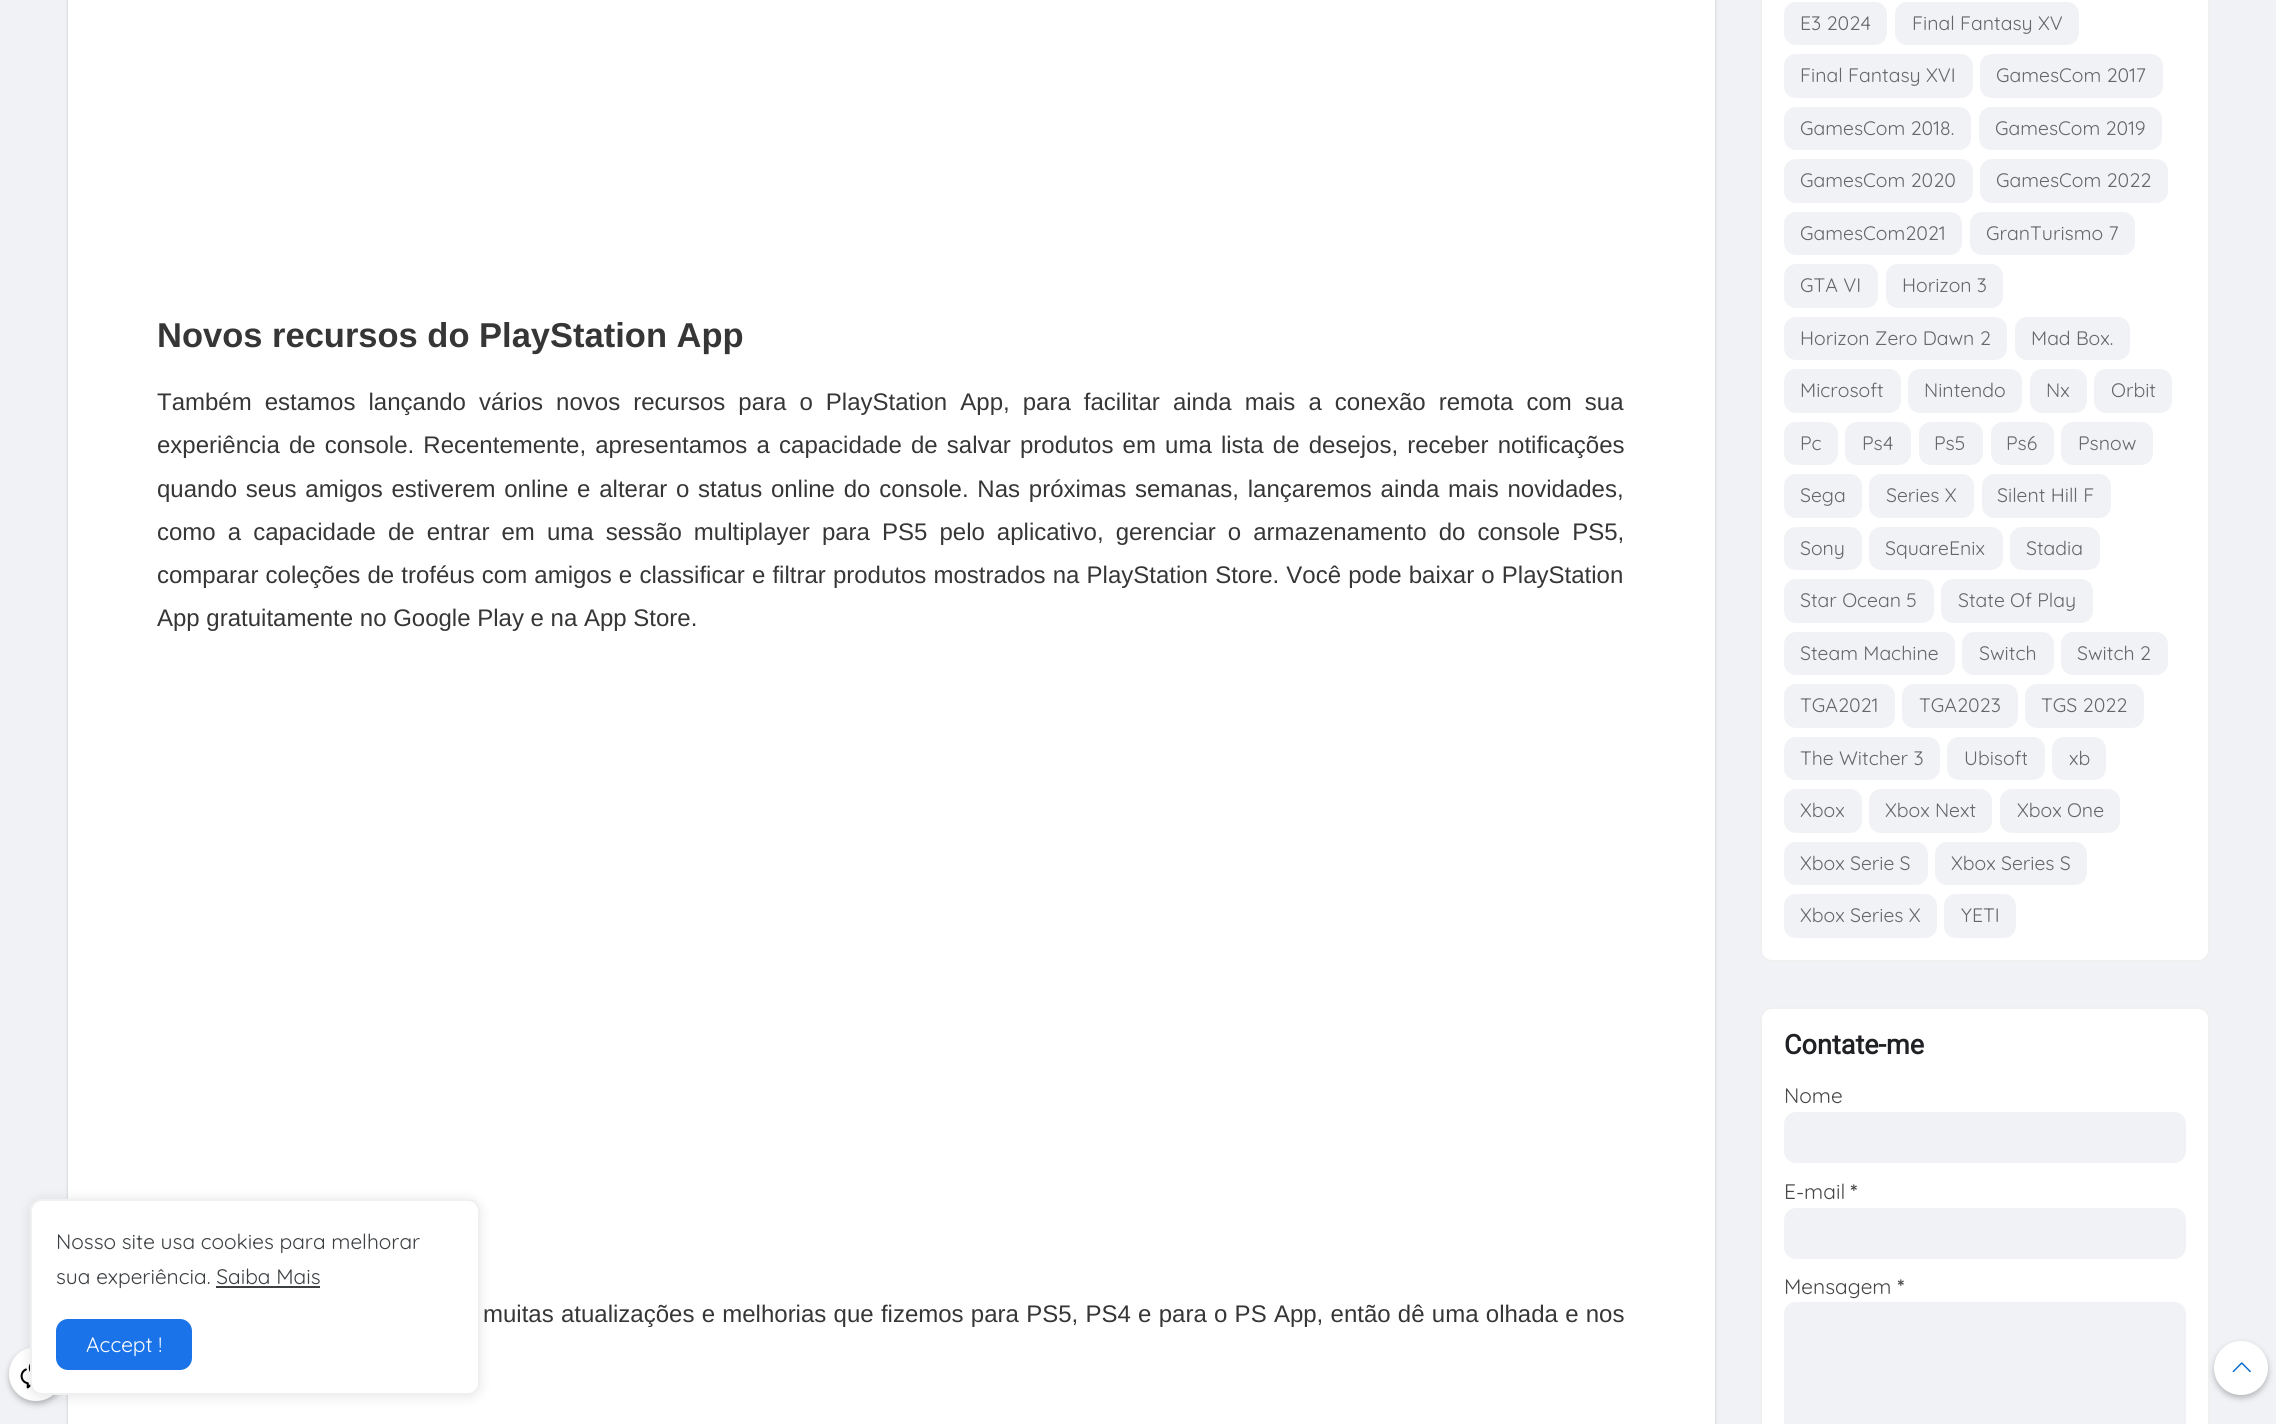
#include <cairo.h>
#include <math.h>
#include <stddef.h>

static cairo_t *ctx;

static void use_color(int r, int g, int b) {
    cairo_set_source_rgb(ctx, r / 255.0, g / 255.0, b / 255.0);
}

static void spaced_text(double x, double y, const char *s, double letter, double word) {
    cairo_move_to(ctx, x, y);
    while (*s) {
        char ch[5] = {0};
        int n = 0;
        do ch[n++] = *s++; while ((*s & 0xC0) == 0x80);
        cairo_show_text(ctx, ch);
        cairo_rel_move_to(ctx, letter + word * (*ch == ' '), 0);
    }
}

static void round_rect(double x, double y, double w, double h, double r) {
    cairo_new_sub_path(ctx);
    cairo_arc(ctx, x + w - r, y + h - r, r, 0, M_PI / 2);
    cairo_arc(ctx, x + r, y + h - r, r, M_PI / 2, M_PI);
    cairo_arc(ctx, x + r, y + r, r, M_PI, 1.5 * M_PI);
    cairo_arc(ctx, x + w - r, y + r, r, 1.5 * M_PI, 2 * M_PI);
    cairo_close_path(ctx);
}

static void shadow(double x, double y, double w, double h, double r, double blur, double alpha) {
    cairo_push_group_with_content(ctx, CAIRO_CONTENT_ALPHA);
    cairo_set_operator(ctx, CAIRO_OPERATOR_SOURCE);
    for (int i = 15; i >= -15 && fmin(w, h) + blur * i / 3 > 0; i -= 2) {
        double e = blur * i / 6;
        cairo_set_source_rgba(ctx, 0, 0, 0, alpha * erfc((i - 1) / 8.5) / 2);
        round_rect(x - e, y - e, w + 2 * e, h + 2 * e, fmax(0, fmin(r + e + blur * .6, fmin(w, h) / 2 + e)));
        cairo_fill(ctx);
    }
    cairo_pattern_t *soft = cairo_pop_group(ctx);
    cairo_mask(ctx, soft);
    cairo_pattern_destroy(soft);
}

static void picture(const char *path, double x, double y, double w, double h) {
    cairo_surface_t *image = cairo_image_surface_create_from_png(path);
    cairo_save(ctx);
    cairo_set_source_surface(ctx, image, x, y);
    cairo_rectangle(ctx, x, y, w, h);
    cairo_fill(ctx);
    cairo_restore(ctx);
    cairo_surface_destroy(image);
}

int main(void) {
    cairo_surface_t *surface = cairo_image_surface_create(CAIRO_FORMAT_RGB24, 2276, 1424);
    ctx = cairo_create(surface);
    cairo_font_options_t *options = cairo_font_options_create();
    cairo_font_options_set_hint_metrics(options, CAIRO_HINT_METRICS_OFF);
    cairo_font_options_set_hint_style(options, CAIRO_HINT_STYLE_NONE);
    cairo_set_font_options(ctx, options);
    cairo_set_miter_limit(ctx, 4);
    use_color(240, 242, 245);
    cairo_paint(ctx);
    use_color(0, 0, 0);
    shadow(68, -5, 1647, 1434, 0, 1.5, 0.2);
    use_color(255, 255, 255);
    cairo_rectangle(ctx, 68, 0, 1647, 1424);
    cairo_fill(ctx);
    cairo_select_font_face(ctx, "Liberation Sans", CAIRO_FONT_SLANT_NORMAL, CAIRO_FONT_WEIGHT_BOLD);
    cairo_set_font_size(ctx, 34.5);
    use_color(54, 54, 54);
    cairo_move_to(ctx, 157, 347);
    cairo_show_text(ctx, "Novos recursos do PlayStation App");
    cairo_select_font_face(ctx, "Liberation Sans", CAIRO_FONT_SLANT_NORMAL, CAIRO_FONT_WEIGHT_NORMAL);
    cairo_set_font_size(ctx, 24);
    spaced_text(157, 410, "Também estamos lançando vários novos recursos para o PlayStation App, para facilitar ainda mais a conexão remota com sua", 0, 6.4);
    spaced_text(157, 453, "experiência de console. Recentemente, apresentamos a capacidade de salvar produtos em uma lista de desejos, receber notificações", 0, 2.5);
    spaced_text(157, 497, "quando seus amigos estiverem online e alterar o status online do console. Nas próximas semanas, lançaremos ainda mais novidades,", 0, 2.1);
    spaced_text(157, 540, "como a capacidade de entrar em uma sessão multiplayer para PS5 pelo aplicativo, gerenciar o armazenamento do console PS5,", 0, 5.4);
    spaced_text(157, 583, "comparar coleções de troféus com amigos e classificar e filtrar produtos mostrados na PlayStation Store. Você pode baixar o PlayStation", 0, 0.5);
    cairo_move_to(ctx, 157, 626);
    cairo_show_text(ctx, "App gratuitamente no Google Play e na App Store.");
    spaced_text(483, 1322, "muitas atualizações e melhorias que fizemos para PS5, PS4 e para o PS App, então dê uma olhada e nos", 0, 0.6);
    use_color(255, 255, 255);
    round_rect(1760, -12, 450, 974, 12);
    cairo_fill(ctx);
    round_rect(1761, -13, 448, 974, 11);
    cairo_set_source_rgba(ctx, 0.608, 0.608, 0.608, 0.15);
    cairo_stroke(ctx);
    use_color(240, 242, 245);
    round_rect(1784, 2, 103, 43, 12);
    cairo_fill(ctx);
    cairo_select_font_face(ctx, "Quicksand Light", CAIRO_FONT_SLANT_NORMAL, CAIRO_FONT_WEIGHT_NORMAL);
    cairo_set_font_size(ctx, 19.5);
    use_color(101, 103, 107);
    cairo_move_to(ctx, 1800, 30);
    cairo_show_text(ctx, "E3 2024");
    use_color(240, 242, 245);
    round_rect(1895, 2, 184, 43, 12);
    cairo_fill(ctx);
    use_color(101, 103, 107);
    cairo_move_to(ctx, 1912, 30);
    cairo_show_text(ctx, "Final Fantasy XV");
    use_color(240, 242, 245);
    round_rect(1784, 54, 189, 44, 12);
    cairo_fill(ctx);
    use_color(101, 103, 107);
    cairo_move_to(ctx, 1800, 82);
    cairo_show_text(ctx, "Final Fantasy XVI");
    use_color(240, 242, 245);
    round_rect(1980, 54, 183, 44, 12);
    cairo_fill(ctx);
    use_color(101, 103, 107);
    cairo_move_to(ctx, 1996, 82);
    cairo_show_text(ctx, "GamesCom 2017");
    use_color(240, 242, 245);
    round_rect(1784, 107, 187, 43, 12);
    cairo_fill(ctx);
    use_color(101, 103, 107);
    cairo_move_to(ctx, 1800, 135);
    cairo_show_text(ctx, "GamesCom 2018.");
    use_color(240, 242, 245);
    round_rect(1979, 107, 183, 43, 12);
    cairo_fill(ctx);
    use_color(101, 103, 107);
    cairo_move_to(ctx, 1995, 135);
    cairo_show_text(ctx, "GamesCom 2019");
    use_color(240, 242, 245);
    round_rect(1784, 159, 189, 44, 12);
    cairo_fill(ctx);
    use_color(101, 103, 107);
    cairo_move_to(ctx, 1800, 187);
    cairo_show_text(ctx, "GamesCom 2020");
    use_color(240, 242, 245);
    round_rect(1980, 159, 188, 44, 12);
    cairo_fill(ctx);
    use_color(101, 103, 107);
    cairo_move_to(ctx, 1996, 187);
    cairo_show_text(ctx, "GamesCom 2022");
    use_color(240, 242, 245);
    round_rect(1784, 212, 178, 43, 12);
    cairo_fill(ctx);
    use_color(101, 103, 107);
    cairo_move_to(ctx, 1800, 240);
    cairo_show_text(ctx, "GamesCom2021");
    use_color(240, 242, 245);
    round_rect(1970, 212, 165, 43, 12);
    cairo_fill(ctx);
    use_color(101, 103, 107);
    cairo_move_to(ctx, 1986, 240);
    cairo_show_text(ctx, "GranTurismo 7");
    use_color(240, 242, 245);
    round_rect(1784, 264, 94, 44, 12);
    cairo_fill(ctx);
    use_color(101, 103, 107);
    cairo_move_to(ctx, 1800, 292);
    cairo_show_text(ctx, "GTA VI");
    use_color(240, 242, 245);
    round_rect(1886, 264, 117, 44, 12);
    cairo_fill(ctx);
    use_color(101, 103, 107);
    cairo_move_to(ctx, 1902, 292);
    cairo_show_text(ctx, "Horizon 3");
    use_color(240, 242, 245);
    round_rect(1784, 317, 223, 43, 12);
    cairo_fill(ctx);
    use_color(101, 103, 107);
    cairo_move_to(ctx, 1800, 345);
    cairo_show_text(ctx, "Horizon Zero Dawn 2");
    use_color(240, 242, 245);
    round_rect(2015, 317, 115, 43, 12);
    cairo_fill(ctx);
    use_color(101, 103, 107);
    cairo_move_to(ctx, 2031, 345);
    cairo_show_text(ctx, "Mad Box.");
    use_color(240, 242, 245);
    round_rect(1784, 369, 117, 44, 12);
    cairo_fill(ctx);
    use_color(101, 103, 107);
    cairo_move_to(ctx, 1800, 397);
    cairo_show_text(ctx, "Microsoft");
    use_color(240, 242, 245);
    round_rect(1908, 369, 114, 44, 12);
    cairo_fill(ctx);
    use_color(101, 103, 107);
    cairo_move_to(ctx, 1924, 397);
    cairo_show_text(ctx, "Nintendo");
    use_color(240, 242, 245);
    round_rect(2030, 369, 57, 44, 12);
    cairo_fill(ctx);
    use_color(101, 103, 107);
    cairo_move_to(ctx, 2046, 397);
    cairo_show_text(ctx, "Nx");
    use_color(240, 242, 245);
    round_rect(2094, 369, 78, 44, 12);
    cairo_fill(ctx);
    use_color(101, 103, 107);
    cairo_move_to(ctx, 2111, 397);
    cairo_show_text(ctx, "Orbit");
    use_color(240, 242, 245);
    round_rect(1784, 422, 54, 43, 12);
    cairo_fill(ctx);
    use_color(101, 103, 107);
    cairo_move_to(ctx, 1800, 450);
    cairo_show_text(ctx, "Pc");
    use_color(240, 242, 245);
    round_rect(1845, 422, 66, 43, 12);
    cairo_fill(ctx);
    use_color(101, 103, 107);
    cairo_move_to(ctx, 1862, 450);
    cairo_show_text(ctx, "Ps4");
    use_color(240, 242, 245);
    round_rect(1919, 422, 64, 43, 12);
    cairo_fill(ctx);
    use_color(101, 103, 107);
    cairo_move_to(ctx, 1934, 450);
    cairo_show_text(ctx, "Ps5");
    use_color(240, 242, 245);
    round_rect(1991, 422, 63, 43, 12);
    cairo_fill(ctx);
    use_color(101, 103, 107);
    cairo_move_to(ctx, 2006, 450);
    cairo_show_text(ctx, "Ps6");
    use_color(240, 242, 245);
    round_rect(2061, 422, 92, 43, 12);
    cairo_fill(ctx);
    use_color(101, 103, 107);
    cairo_move_to(ctx, 2078, 450);
    cairo_show_text(ctx, "Psnow");
    use_color(240, 242, 245);
    round_rect(1784, 474, 78, 44, 12);
    cairo_fill(ctx);
    use_color(101, 103, 107);
    cairo_move_to(ctx, 1800, 502);
    cairo_show_text(ctx, "Sega");
    use_color(240, 242, 245);
    round_rect(1869, 474, 105, 44, 12);
    cairo_fill(ctx);
    use_color(101, 103, 107);
    cairo_move_to(ctx, 1886, 502);
    cairo_show_text(ctx, "Series X");
    use_color(240, 242, 245);
    round_rect(1982, 474, 129, 44, 12);
    cairo_fill(ctx);
    use_color(101, 103, 107);
    cairo_move_to(ctx, 1997, 502);
    cairo_show_text(ctx, "Silent Hill F");
    use_color(240, 242, 245);
    round_rect(1784, 527, 78, 43, 12);
    cairo_fill(ctx);
    use_color(101, 103, 107);
    cairo_move_to(ctx, 1800, 555);
    cairo_show_text(ctx, "Sony");
    use_color(240, 242, 245);
    round_rect(1869, 527, 134, 43, 12);
    cairo_fill(ctx);
    use_color(101, 103, 107);
    cairo_move_to(ctx, 1885, 555);
    cairo_show_text(ctx, "SquareEnix");
    use_color(240, 242, 245);
    round_rect(2010, 527, 90, 43, 12);
    cairo_fill(ctx);
    use_color(101, 103, 107);
    cairo_move_to(ctx, 2026, 555);
    cairo_show_text(ctx, "Stadia");
    use_color(240, 242, 245);
    round_rect(1784, 579, 150, 44, 12);
    cairo_fill(ctx);
    use_color(101, 103, 107);
    cairo_move_to(ctx, 1800, 607);
    cairo_show_text(ctx, "Star Ocean 5");
    use_color(240, 242, 245);
    round_rect(1941, 579, 152, 44, 12);
    cairo_fill(ctx);
    use_color(101, 103, 107);
    cairo_move_to(ctx, 1958, 607);
    cairo_show_text(ctx, "State Of Play");
    use_color(240, 242, 245);
    round_rect(1784, 632, 171, 43, 12);
    cairo_fill(ctx);
    use_color(101, 103, 107);
    cairo_move_to(ctx, 1800, 660);
    cairo_show_text(ctx, "Steam Machine");
    use_color(240, 242, 245);
    round_rect(1962, 632, 92, 43, 12);
    cairo_fill(ctx);
    use_color(101, 103, 107);
    cairo_move_to(ctx, 1979, 660);
    cairo_show_text(ctx, "Switch");
    use_color(240, 242, 245);
    round_rect(2061, 632, 107, 43, 12);
    cairo_fill(ctx);
    use_color(101, 103, 107);
    cairo_move_to(ctx, 2077, 660);
    cairo_show_text(ctx, "Switch 2");
    use_color(240, 242, 245);
    round_rect(1784, 684, 111, 44, 12);
    cairo_fill(ctx);
    use_color(101, 103, 107);
    cairo_move_to(ctx, 1800, 712);
    cairo_show_text(ctx, "TGA2021");
    use_color(240, 242, 245);
    round_rect(1902, 684, 116, 44, 12);
    cairo_fill(ctx);
    use_color(101, 103, 107);
    cairo_move_to(ctx, 1919, 712);
    cairo_show_text(ctx, "TGA2023");
    use_color(240, 242, 245);
    round_rect(2025, 684, 119, 44, 12);
    cairo_fill(ctx);
    use_color(101, 103, 107);
    cairo_move_to(ctx, 2041, 712);
    cairo_show_text(ctx, "TGS 2022");
    use_color(240, 242, 245);
    round_rect(1784, 737, 156, 43, 12);
    cairo_fill(ctx);
    use_color(101, 103, 107);
    cairo_move_to(ctx, 1800, 765);
    cairo_show_text(ctx, "The Witcher 3");
    use_color(240, 242, 245);
    round_rect(1947, 737, 98, 43, 12);
    cairo_fill(ctx);
    use_color(101, 103, 107);
    cairo_move_to(ctx, 1964, 765);
    cairo_show_text(ctx, "Ubisoft");
    use_color(240, 242, 245);
    round_rect(2052, 737, 54, 43, 12);
    cairo_fill(ctx);
    use_color(101, 103, 107);
    cairo_move_to(ctx, 2069, 765);
    cairo_show_text(ctx, "xb");
    use_color(240, 242, 245);
    round_rect(1784, 789, 78, 44, 12);
    cairo_fill(ctx);
    use_color(101, 103, 107);
    cairo_move_to(ctx, 1800, 817);
    cairo_show_text(ctx, "Xbox");
    use_color(240, 242, 245);
    round_rect(1869, 789, 123, 44, 12);
    cairo_fill(ctx);
    use_color(101, 103, 107);
    cairo_move_to(ctx, 1885, 817);
    cairo_show_text(ctx, "Xbox Next");
    use_color(240, 242, 245);
    round_rect(2000, 789, 120, 44, 12);
    cairo_fill(ctx);
    use_color(101, 103, 107);
    cairo_move_to(ctx, 2017, 817);
    cairo_show_text(ctx, "Xbox One");
    use_color(240, 242, 245);
    round_rect(1784, 842, 144, 43, 12);
    cairo_fill(ctx);
    use_color(101, 103, 107);
    cairo_move_to(ctx, 1800, 870);
    cairo_show_text(ctx, "Xbox Serie S");
    use_color(240, 242, 245);
    round_rect(1935, 842, 152, 43, 12);
    cairo_fill(ctx);
    use_color(101, 103, 107);
    cairo_move_to(ctx, 1951, 870);
    cairo_show_text(ctx, "Xbox Series S");
    use_color(240, 242, 245);
    round_rect(1784, 894, 153, 44, 12);
    cairo_fill(ctx);
    use_color(101, 103, 107);
    cairo_move_to(ctx, 1800, 922);
    cairo_show_text(ctx, "Xbox Series X");
    use_color(240, 242, 245);
    round_rect(1944, 894, 72, 44, 12);
    cairo_fill(ctx);
    use_color(101, 103, 107);
    cairo_move_to(ctx, 1961, 922);
    cairo_show_text(ctx, "YETI");
    use_color(255, 255, 255);
    round_rect(1760, 1007, 450, 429, 12);
    cairo_fill(ctx);
    round_rect(1761, 1008, 448, 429, 11);
    cairo_set_source_rgba(ctx, 0.608, 0.608, 0.608, 0.15);
    cairo_stroke(ctx);
    cairo_select_font_face(ctx, "Roboto", CAIRO_FONT_SLANT_NORMAL, CAIRO_FONT_WEIGHT_BOLD);
    cairo_set_font_size(ctx, 27);
    use_color(32, 33, 36);
    cairo_move_to(ctx, 1784, 1054);
    cairo_show_text(ctx, "Contate-me");
    cairo_select_font_face(ctx, "Quicksand Light", CAIRO_FONT_SLANT_NORMAL, CAIRO_FONT_WEIGHT_NORMAL);
    cairo_set_font_size(ctx, 21);
    use_color(71, 71, 71);
    cairo_move_to(ctx, 1784, 1103);
    cairo_show_text(ctx, "Nome");
    use_color(240, 242, 245);
    round_rect(1784, 1112, 402, 51, 12);
    cairo_fill(ctx);
    use_color(71, 71, 71);
    cairo_move_to(ctx, 1784, 1199);
    cairo_show_text(ctx, "E-mail");
    cairo_select_font_face(ctx, "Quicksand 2 Light", CAIRO_FONT_SLANT_NORMAL, CAIRO_FONT_WEIGHT_NORMAL);
    cairo_move_to(ctx, 1850, 1199);
    cairo_show_text(ctx, "*");
    use_color(240, 242, 245);
    round_rect(1784, 1208, 402, 51, 12);
    cairo_fill(ctx);
    cairo_select_font_face(ctx, "Quicksand Light", CAIRO_FONT_SLANT_NORMAL, CAIRO_FONT_WEIGHT_NORMAL);
    use_color(71, 71, 71);
    cairo_move_to(ctx, 1784, 1294);
    cairo_show_text(ctx, "Mensagem");
    cairo_select_font_face(ctx, "Quicksand 2 Light", CAIRO_FONT_SLANT_NORMAL, CAIRO_FONT_WEIGHT_NORMAL);
    cairo_move_to(ctx, 1897, 1294);
    cairo_show_text(ctx, "*");
    use_color(240, 242, 245);
    round_rect(1784, 1302, 402, 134, 12);
    cairo_fill(ctx);
    use_color(0, 0, 0);
    shadow(9, 1350, 54, 54, 27, 3, 0.25);
    use_color(255, 255, 255);
    cairo_arc(ctx, 36, 1374, 27, 0, 2 * M_PI);
    cairo_fill(ctx);
    picture("img1.png", 20, 1363, 11, 26);
    use_color(0, 0, 0);
    shadow(30, 1200, 450, 197, 12, 6, 0.1);
    use_color(255, 255, 255);
    round_rect(30, 1199, 450, 196, 12);
    cairo_fill(ctx);
    round_rect(31, 1200, 448, 194, 11);
    cairo_set_source_rgba(ctx, 0.608, 0.608, 0.608, 0.15);
    cairo_stroke(ctx);
    cairo_select_font_face(ctx, "Quicksand Light", CAIRO_FONT_SLANT_NORMAL, CAIRO_FONT_WEIGHT_NORMAL);
    use_color(60, 64, 67);
    cairo_move_to(ctx, 56, 1249);
    cairo_show_text(ctx, "Nosso site usa cookies para melhorar");
    cairo_move_to(ctx, 56, 1284);
    cairo_show_text(ctx, "sua experiência. Saiba Mais");
    cairo_rectangle(ctx, 216, 1286, 104, 2);
    cairo_fill(ctx);
    use_color(26, 115, 232);
    round_rect(56, 1319, 136, 51, 12);
    cairo_fill(ctx);
    use_color(255, 255, 255);
    cairo_move_to(ctx, 86, 1352);
    cairo_show_text(ctx, "Accept !");
    use_color(0, 0, 0);
    shadow(2214, 1344, 54, 54, 27, 3, 0.25);
    use_color(255, 255, 255);
    cairo_arc(ctx, 2241, 1368, 27, 0, 2 * M_PI);
    cairo_fill(ctx);
    picture("img2.png", 2232, 1362, 19, 11);
    cairo_surface_write_to_png(surface, "result.png");
    cairo_font_options_destroy(options);
    cairo_destroy(ctx);
    cairo_surface_destroy(surface);
    return 0;
}
